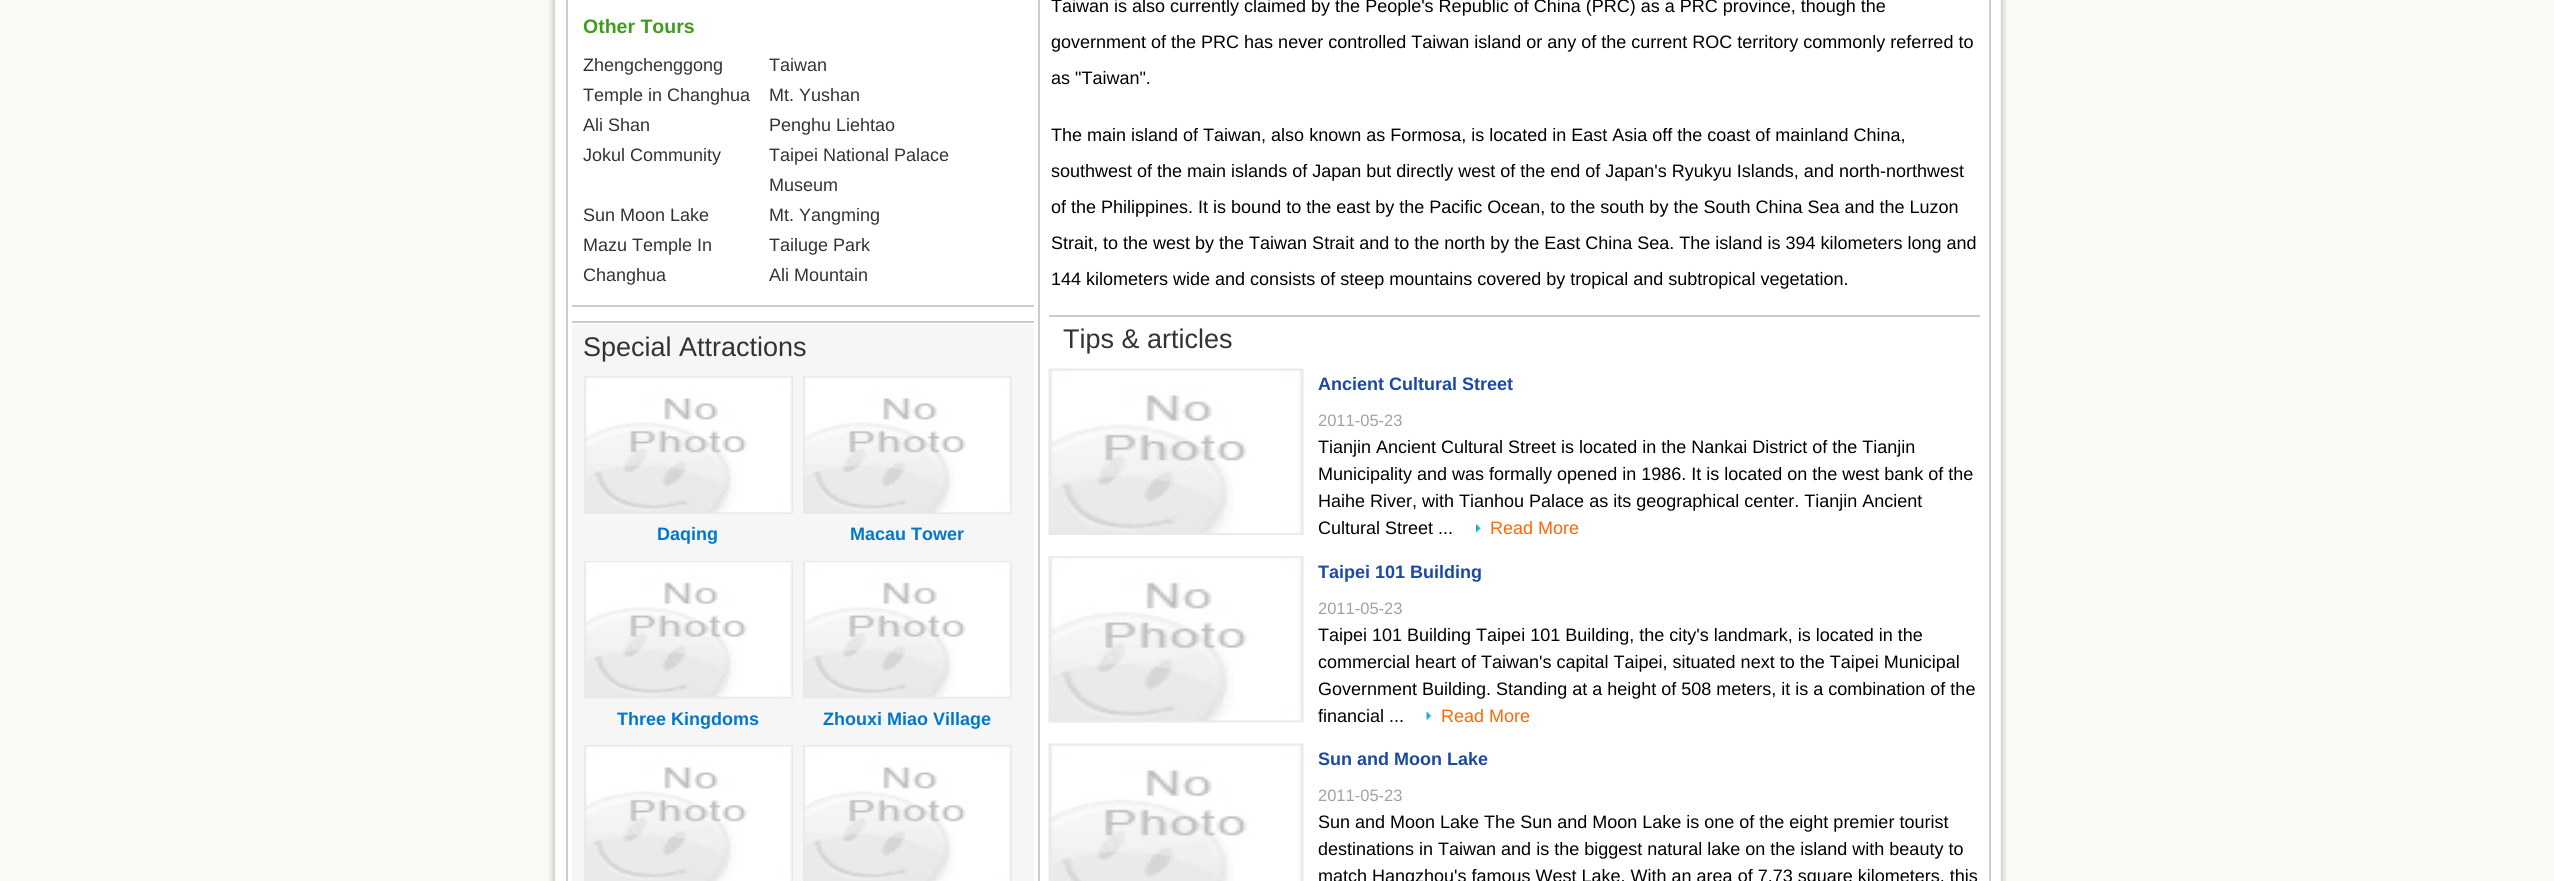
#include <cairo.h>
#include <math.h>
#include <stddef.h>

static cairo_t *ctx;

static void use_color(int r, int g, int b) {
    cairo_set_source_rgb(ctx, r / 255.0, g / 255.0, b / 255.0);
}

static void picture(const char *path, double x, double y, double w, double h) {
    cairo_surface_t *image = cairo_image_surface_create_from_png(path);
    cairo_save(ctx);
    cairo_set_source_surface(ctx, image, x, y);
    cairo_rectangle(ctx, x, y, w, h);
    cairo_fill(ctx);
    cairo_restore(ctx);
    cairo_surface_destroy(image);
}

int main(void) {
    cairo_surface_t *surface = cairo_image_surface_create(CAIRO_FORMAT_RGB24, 2554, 881);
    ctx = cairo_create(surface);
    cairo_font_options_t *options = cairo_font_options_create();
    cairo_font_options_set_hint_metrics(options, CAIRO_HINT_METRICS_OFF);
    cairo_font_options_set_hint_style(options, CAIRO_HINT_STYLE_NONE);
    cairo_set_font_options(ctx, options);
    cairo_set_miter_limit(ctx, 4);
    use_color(249, 249, 246);
    cairo_paint(ctx);
    picture("img1.png", 549, 0, 1458, 881);
    cairo_rectangle(ctx, 567, -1, 1423, 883);
    use_color(204, 204, 204);
    cairo_stroke(ctx);
    cairo_rectangle(ctx, 572, 305, 462, 2);
    cairo_fill(ctx);
    cairo_select_font_face(ctx, "Liberation Sans", CAIRO_FONT_SLANT_NORMAL, CAIRO_FONT_WEIGHT_BOLD);
    cairo_set_font_size(ctx, 19.5);
    use_color(65, 155, 31);
    cairo_move_to(ctx, 583, 33);
    cairo_show_text(ctx, "Other Tours");
    cairo_select_font_face(ctx, "Liberation Sans", CAIRO_FONT_SLANT_NORMAL, CAIRO_FONT_WEIGHT_NORMAL);
    cairo_set_font_size(ctx, 18);
    use_color(51, 51, 51);
    cairo_move_to(ctx, 583, 71);
    cairo_show_text(ctx, "Zhengchenggong");
    cairo_move_to(ctx, 583, 101);
    cairo_show_text(ctx, "Temple in Changhua");
    cairo_move_to(ctx, 769, 71);
    cairo_show_text(ctx, "Taiwan");
    cairo_move_to(ctx, 769, 101);
    cairo_show_text(ctx, "Mt. Yushan");
    cairo_move_to(ctx, 583, 131);
    cairo_show_text(ctx, "Ali Shan");
    cairo_move_to(ctx, 769, 131);
    cairo_show_text(ctx, "Penghu Liehtao");
    cairo_move_to(ctx, 583, 161);
    cairo_show_text(ctx, "Jokul Community");
    cairo_move_to(ctx, 769, 161);
    cairo_show_text(ctx, "Taipei National Palace");
    cairo_move_to(ctx, 769, 191);
    cairo_show_text(ctx, "Museum");
    cairo_move_to(ctx, 583, 221);
    cairo_show_text(ctx, "Sun Moon Lake");
    cairo_move_to(ctx, 769, 221);
    cairo_show_text(ctx, "Mt. Yangming");
    cairo_move_to(ctx, 583, 251);
    cairo_show_text(ctx, "Mazu Temple In");
    cairo_move_to(ctx, 583, 281);
    cairo_show_text(ctx, "Changhua");
    cairo_move_to(ctx, 769, 251);
    cairo_show_text(ctx, "Tailuge Park");
    cairo_move_to(ctx, 769, 281);
    cairo_show_text(ctx, "Ali Mountain");
    use_color(204, 204, 204);
    cairo_rectangle(ctx, 572, 321, 462, 2);
    cairo_fill(ctx);
    use_color(246, 246, 246);
    cairo_rectangle(ctx, 572, 324, 462, 557);
    cairo_fill(ctx);
    cairo_set_font_size(ctx, 27);
    use_color(51, 51, 51);
    cairo_move_to(ctx, 583, 356);
    cairo_show_text(ctx, "Special Attractions");
    picture("img2.png", 584, 376, 209, 138);
    cairo_select_font_face(ctx, "Liberation Sans", CAIRO_FONT_SLANT_NORMAL, CAIRO_FONT_WEIGHT_BOLD);
    cairo_set_font_size(ctx, 18);
    use_color(1, 119, 206);
    cairo_move_to(ctx, 657, 540);
    cairo_show_text(ctx, "Daqing");
    picture("img3.png", 803, 376, 209, 138);
    cairo_move_to(ctx, 850, 540);
    cairo_show_text(ctx, "Macau Tower");
    picture("img4.png", 584, 561, 209, 138);
    cairo_move_to(ctx, 617, 725);
    cairo_show_text(ctx, "Three Kingdoms");
    picture("img5.png", 803, 561, 209, 138);
    cairo_move_to(ctx, 823, 725);
    cairo_show_text(ctx, "Zhouxi Miao Village");
    picture("img6.png", 584, 745, 209, 136);
    picture("img7.png", 803, 745, 209, 136);
    use_color(204, 204, 204);
    cairo_rectangle(ctx, 1038, 0, 2, 881);
    cairo_fill(ctx);
    cairo_select_font_face(ctx, "Liberation Sans", CAIRO_FONT_SLANT_NORMAL, CAIRO_FONT_WEIGHT_NORMAL);
    use_color(0, 0, 0);
    cairo_move_to(ctx, 1051, 12);
    cairo_show_text(ctx, "Taiwan is also currently claimed by the People's Republic of China (PRC) as a PRC province, though the");
    cairo_move_to(ctx, 1051, 48);
    cairo_show_text(ctx, "government of the PRC has never controlled Taiwan island or any of the current ROC territory commonly referred to");
    cairo_move_to(ctx, 1051, 84);
    cairo_show_text(ctx, "as \"Taiwan\".");
    cairo_move_to(ctx, 1051, 141);
    cairo_show_text(ctx, "The main island of Taiwan, also known as Formosa, is located in East Asia off the coast of mainland China,");
    cairo_move_to(ctx, 1051, 177);
    cairo_show_text(ctx, "southwest of the main islands of Japan but directly west of the end of Japan's Ryukyu Islands, and north-northwest");
    cairo_move_to(ctx, 1051, 213);
    cairo_show_text(ctx, "of the Philippines. It is bound to the east by the Pacific Ocean, to the south by the South China Sea and the Luzon");
    cairo_move_to(ctx, 1051, 249);
    cairo_show_text(ctx, "Strait, to the west by the Taiwan Strait and to the north by the East China Sea. The island is 394 kilometers long and");
    cairo_move_to(ctx, 1051, 285);
    cairo_show_text(ctx, "144 kilometers wide and consists of steep mountains covered by tropical and subtropical vegetation.");
    use_color(204, 204, 204);
    cairo_rectangle(ctx, 1049, 315, 931, 2);
    cairo_fill(ctx);
    cairo_set_font_size(ctx, 27);
    use_color(51, 51, 51);
    cairo_move_to(ctx, 1063, 348);
    cairo_show_text(ctx, "Tips & articles");
    picture("img8.png", 1048, 368, 256, 167);
    cairo_select_font_face(ctx, "Liberation Sans", CAIRO_FONT_SLANT_NORMAL, CAIRO_FONT_WEIGHT_BOLD);
    cairo_set_font_size(ctx, 18);
    use_color(28, 73, 164);
    cairo_move_to(ctx, 1318, 390);
    cairo_show_text(ctx, "Ancient Cultural Street");
    cairo_select_font_face(ctx, "Liberation Sans", CAIRO_FONT_SLANT_NORMAL, CAIRO_FONT_WEIGHT_NORMAL);
    cairo_set_font_size(ctx, 16.5);
    use_color(161, 161, 161);
    cairo_move_to(ctx, 1318, 426);
    cairo_show_text(ctx, "2011-05-23");
    cairo_set_font_size(ctx, 18);
    use_color(0, 0, 0);
    cairo_move_to(ctx, 1318, 453);
    cairo_show_text(ctx, "Tianjin Ancient Cultural Street is located in the Nankai District of the Tianjin");
    cairo_move_to(ctx, 1318, 480);
    cairo_show_text(ctx, "Municipality and was formally opened in 1986. It is located on the west bank of the");
    cairo_move_to(ctx, 1318, 507);
    cairo_show_text(ctx, "Haihe River, with Tianhou Palace as its geographical center. Tianjin Ancient");
    cairo_move_to(ctx, 1318, 534);
    cairo_show_text(ctx, "Cultural Street ...");
    picture("img9.png", 1476, 524, 5, 9);
    use_color(255, 102, 0);
    cairo_move_to(ctx, 1490, 534);
    cairo_show_text(ctx, "Read More");
    picture("img10.png", 1048, 556, 256, 167);
    cairo_select_font_face(ctx, "Liberation Sans", CAIRO_FONT_SLANT_NORMAL, CAIRO_FONT_WEIGHT_BOLD);
    use_color(28, 73, 164);
    cairo_move_to(ctx, 1318, 578);
    cairo_show_text(ctx, "Taipei 101 Building");
    cairo_select_font_face(ctx, "Liberation Sans", CAIRO_FONT_SLANT_NORMAL, CAIRO_FONT_WEIGHT_NORMAL);
    cairo_set_font_size(ctx, 16.5);
    use_color(161, 161, 161);
    cairo_move_to(ctx, 1318, 614);
    cairo_show_text(ctx, "2011-05-23");
    cairo_set_font_size(ctx, 18);
    use_color(0, 0, 0);
    cairo_move_to(ctx, 1318, 641);
    cairo_show_text(ctx, "Taipei 101 Building Taipei 101 Building, the city's landmark, is located in the");
    cairo_move_to(ctx, 1318, 668);
    cairo_show_text(ctx, "commercial heart of Taiwan's capital Taipei, situated next to the Taipei Municipal");
    cairo_move_to(ctx, 1318, 695);
    cairo_show_text(ctx, "Government Building. Standing at a height of 508 meters, it is a combination of the");
    cairo_move_to(ctx, 1318, 722);
    cairo_show_text(ctx, "financial ...");
    picture("img11.png", 1426, 711, 6, 9);
    use_color(255, 102, 0);
    cairo_move_to(ctx, 1441, 722);
    cairo_show_text(ctx, "Read More");
    picture("img12.png", 1048, 743, 256, 138);
    cairo_select_font_face(ctx, "Liberation Sans", CAIRO_FONT_SLANT_NORMAL, CAIRO_FONT_WEIGHT_BOLD);
    use_color(28, 73, 164);
    cairo_move_to(ctx, 1318, 765);
    cairo_show_text(ctx, "Sun and Moon Lake");
    cairo_select_font_face(ctx, "Liberation Sans", CAIRO_FONT_SLANT_NORMAL, CAIRO_FONT_WEIGHT_NORMAL);
    cairo_set_font_size(ctx, 16.5);
    use_color(161, 161, 161);
    cairo_move_to(ctx, 1318, 801);
    cairo_show_text(ctx, "2011-05-23");
    cairo_set_font_size(ctx, 18);
    use_color(0, 0, 0);
    cairo_move_to(ctx, 1318, 828);
    cairo_show_text(ctx, "Sun and Moon Lake The Sun and Moon Lake is one of the eight premier tourist");
    cairo_move_to(ctx, 1318, 855);
    cairo_show_text(ctx, "destinations in Taiwan and is the biggest natural lake on the island with beauty to");
    cairo_move_to(ctx, 1318, 882);
    cairo_show_text(ctx, "match Hangzhou's famous West Lake. With an area of 7.73 square kilometers, this");
    cairo_surface_write_to_png(surface, "result.png");
    cairo_font_options_destroy(options);
    cairo_destroy(ctx);
    cairo_surface_destroy(surface);
    return 0;
}
